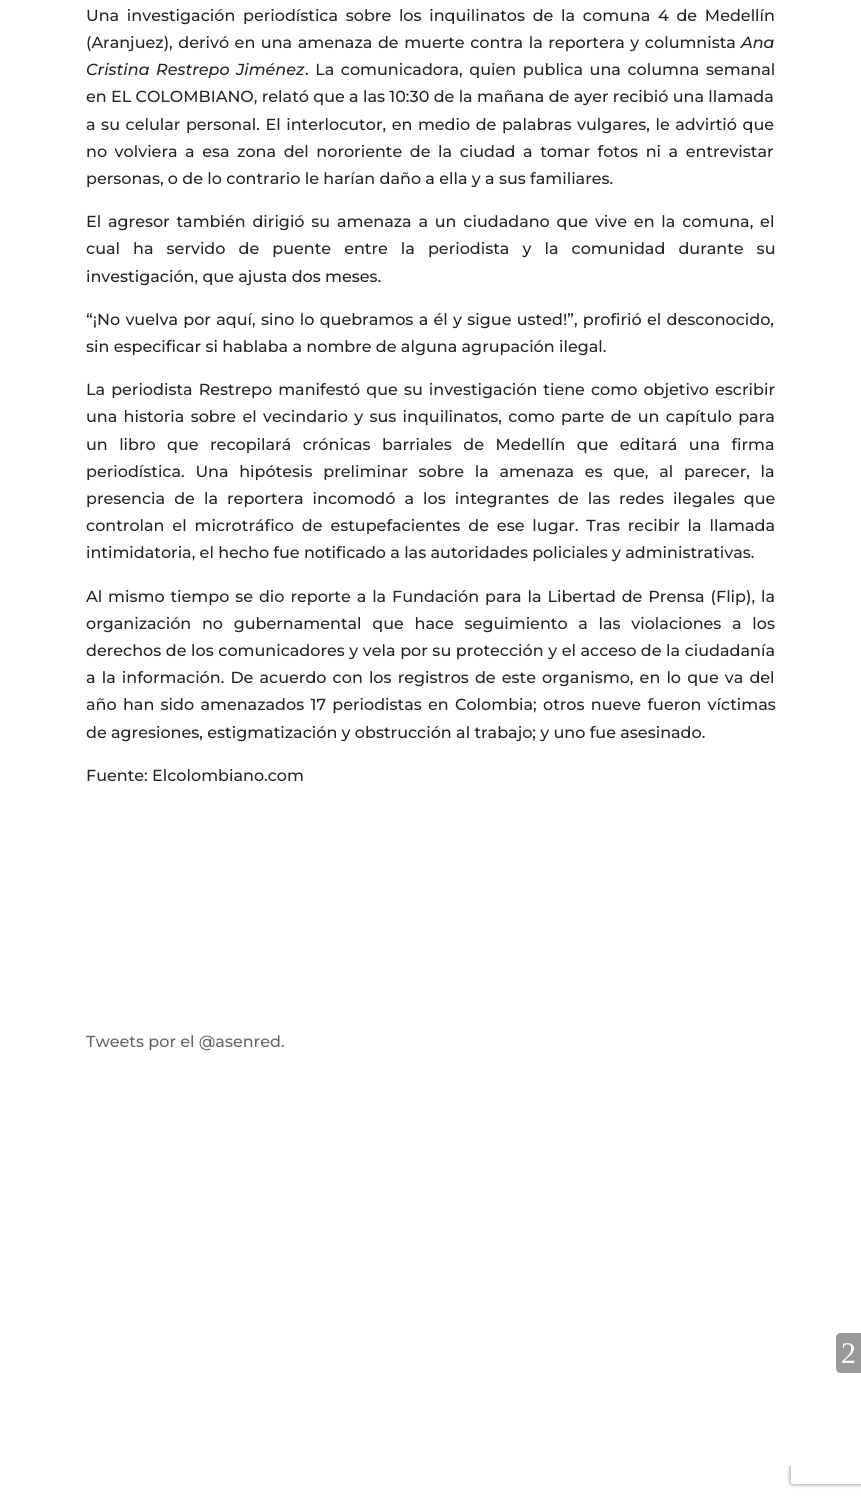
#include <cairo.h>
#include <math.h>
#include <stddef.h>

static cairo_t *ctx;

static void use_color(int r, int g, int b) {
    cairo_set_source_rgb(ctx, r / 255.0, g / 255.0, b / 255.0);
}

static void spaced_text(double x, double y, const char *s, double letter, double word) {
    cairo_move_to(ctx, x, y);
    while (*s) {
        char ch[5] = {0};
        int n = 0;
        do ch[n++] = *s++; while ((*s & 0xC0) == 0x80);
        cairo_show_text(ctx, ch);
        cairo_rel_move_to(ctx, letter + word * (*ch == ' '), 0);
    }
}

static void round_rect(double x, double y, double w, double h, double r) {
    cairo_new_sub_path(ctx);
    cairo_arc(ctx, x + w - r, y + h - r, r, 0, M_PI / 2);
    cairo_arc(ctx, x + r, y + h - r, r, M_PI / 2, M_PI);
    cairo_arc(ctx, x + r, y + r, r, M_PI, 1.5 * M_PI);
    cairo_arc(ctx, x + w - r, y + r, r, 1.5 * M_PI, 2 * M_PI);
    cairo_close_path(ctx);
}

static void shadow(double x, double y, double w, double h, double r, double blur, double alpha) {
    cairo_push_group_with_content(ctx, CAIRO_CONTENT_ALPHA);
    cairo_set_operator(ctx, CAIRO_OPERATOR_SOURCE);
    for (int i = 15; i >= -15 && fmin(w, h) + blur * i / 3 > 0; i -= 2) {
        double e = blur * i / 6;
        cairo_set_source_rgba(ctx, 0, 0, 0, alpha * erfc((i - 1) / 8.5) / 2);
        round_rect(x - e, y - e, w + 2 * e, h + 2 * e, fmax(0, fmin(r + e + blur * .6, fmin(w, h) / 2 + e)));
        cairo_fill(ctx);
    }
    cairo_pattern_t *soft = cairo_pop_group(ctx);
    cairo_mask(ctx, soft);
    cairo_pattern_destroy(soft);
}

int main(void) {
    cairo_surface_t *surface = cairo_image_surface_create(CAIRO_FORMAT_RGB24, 861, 1498);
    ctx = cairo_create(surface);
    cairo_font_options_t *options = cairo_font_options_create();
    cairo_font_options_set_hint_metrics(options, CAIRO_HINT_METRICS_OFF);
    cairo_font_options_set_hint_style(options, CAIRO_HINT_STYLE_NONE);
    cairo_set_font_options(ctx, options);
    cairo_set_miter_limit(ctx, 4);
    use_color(255, 255, 255);
    cairo_paint(ctx);
    cairo_select_font_face(ctx, "Montserrat Thin", CAIRO_FONT_SLANT_NORMAL, CAIRO_FONT_WEIGHT_NORMAL);
    cairo_set_font_size(ctx, 16);
    use_color(38, 38, 38);
    spaced_text(86, 21, "Una investigación periodística sobre los inquilinatos de la comuna 4 de Medellín", 0, 3.4);
    spaced_text(86, 48, "(Aranjuez), derivó en una amenaza de muerte contra la reportera y columnista", 0, 1.25);
    cairo_select_font_face(ctx, "Montserrat Thin", CAIRO_FONT_SLANT_ITALIC, CAIRO_FONT_WEIGHT_NORMAL);
    cairo_move_to(ctx, 741, 48);
    cairo_show_text(ctx, "Ana");
    spaced_text(86, 75, "Cristina Restrepo Jiménez", 0, 2.25);
    cairo_select_font_face(ctx, "Montserrat Thin", CAIRO_FONT_SLANT_NORMAL, CAIRO_FONT_WEIGHT_NORMAL);
    spaced_text(305, 75, ". La comunicadora, quien publica una columna semanal", 0, 2.25);
    cairo_move_to(ctx, 86, 102);
    cairo_show_text(ctx, "en EL COLOMBIANO, relató que a las 10:30 de la mañana de ayer recibió una llamada");
    spaced_text(86, 130, "a su celular personal. El interlocutor, en medio de palabras vulgares, le advirtió que", 0, 1.25);
    spaced_text(86, 157, "no volviera a esa zona del nororiente de la ciudad a tomar fotos ni a entrevistar", 0, 3.25);
    cairo_move_to(ctx, 86, 184);
    cairo_show_text(ctx, "personas, o de lo contrario le harían daño a ella y a sus familiares.");
    spaced_text(86, 227, "El agresor también dirigió su amenaza a un ciudadano que vive en la comuna, el", 0, 2.5);
    spaced_text(86, 254, "cual ha servido de puente entre la periodista y la comunidad durante su", 0, 8.75);
    cairo_move_to(ctx, 86, 282);
    cairo_show_text(ctx, "investigación, que ajusta dos meses.");
    spaced_text(86, 325, "“¡No vuelva por aquí, sino lo quebramos a él y sigue usted!”, profirió el desconocido,", 0, 1);
    cairo_move_to(ctx, 86, 352);
    cairo_show_text(ctx, "sin especificar si hablaba a nombre de alguna agrupación ilegal.");
    spaced_text(86, 395, "La periodista Restrepo manifestó que su investigación tiene como objetivo escribir", 0, 1.75);
    spaced_text(86, 422, "una historia sobre el vecindario y sus inquilinatos, como parte de un capítulo para", 0, 2);
    spaced_text(86, 450, "un libro que recopilará crónicas barriales de Medellín que editará una firma", 0, 7.1);
    spaced_text(86, 477, "periodística. Una hipótesis preliminar sobre la amenaza es que, al parecer, la", 0, 6.4);
    spaced_text(86, 504, "presencia de la reportera incomodó a los integrantes de las redes ilegales que", 0, 4.75);
    spaced_text(86, 531, "controlan el microtráfico de estupefacientes de ese lugar. Tras recibir la llamada", 0, 3.6);
    cairo_move_to(ctx, 86, 558);
    cairo_show_text(ctx, "intimidatoria, el hecho fue notificado a las autoridades policiales y administrativas.");
    spaced_text(86, 602, "Al mismo tiempo se dio reporte a la Fundación para la Libertad de Prensa (Flip), la", 0, 1.6);
    spaced_text(86, 629, "organización no gubernamental que hace seguimiento a las violaciones a los", 0, 6.4);
    spaced_text(86, 656, "derechos de los comunicadores y vela por su protección y el acceso de la ciudadanía", 0, 0.25);
    spaced_text(86, 683, "a la información. De acuerdo con los registros de este organismo, en lo que va del", 0, 1.8);
    spaced_text(86, 710, "año han sido amenazados 17 periodistas en Colombia; otros nueve fueron víctimas", 0, 2);
    cairo_move_to(ctx, 86, 738);
    cairo_show_text(ctx, "de agresiones, estigmatización y obstrucción al trabajo; y uno fue asesinado.");
    cairo_move_to(ctx, 86, 781);
    cairo_show_text(ctx, "Fuente: Elcolombiano.com");
    use_color(102, 102, 102);
    cairo_move_to(ctx, 86, 1047);
    cairo_show_text(ctx, "Tweets por el @asenred.");
    cairo_save(ctx);
    cairo_set_fill_rule(ctx, CAIRO_FILL_RULE_EVEN_ODD);
    cairo_new_path(ctx);
    cairo_move_to(ctx, 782, 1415);
    cairo_line_to(ctx, 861, 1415);
    cairo_line_to(ctx, 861, 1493);
    cairo_line_to(ctx, 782, 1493);
    cairo_close_path(ctx);
    cairo_move_to(ctx, 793, 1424);
    cairo_line_to(ctx, 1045, 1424);
    cairo_curve_to(ctx, 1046, 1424, 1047, 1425, 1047, 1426);
    cairo_line_to(ctx, 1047, 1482);
    cairo_curve_to(ctx, 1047, 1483, 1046, 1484, 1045, 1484);
    cairo_line_to(ctx, 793, 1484);
    cairo_curve_to(ctx, 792, 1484, 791, 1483, 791, 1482);
    cairo_line_to(ctx, 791, 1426);
    cairo_curve_to(ctx, 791, 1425, 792, 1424, 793, 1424);
    cairo_close_path(ctx);
    cairo_clip(ctx);
    use_color(128, 128, 128);
    shadow(791, 1424, 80, 60, 2, 2.5, 1);
    cairo_restore(ctx);
    use_color(255, 255, 255);
    cairo_rectangle(ctx, 786, 1419, 75, 47);
    cairo_fill(ctx);
    use_color(153, 153, 153);
    cairo_new_path(ctx);
    cairo_move_to(ctx, 841, 1333);
    cairo_line_to(ctx, 861, 1333);
    cairo_line_to(ctx, 861, 1373);
    cairo_line_to(ctx, 841, 1373);
    cairo_curve_to(ctx, 838, 1373, 836, 1371, 836, 1368);
    cairo_line_to(ctx, 836, 1338);
    cairo_curve_to(ctx, 836, 1335, 838, 1333, 841, 1333);
    cairo_close_path(ctx);
    cairo_fill(ctx);
    cairo_select_font_face(ctx, "Liberation Serif", CAIRO_FONT_SLANT_NORMAL, CAIRO_FONT_WEIGHT_NORMAL);
    cairo_set_font_size(ctx, 30);
    use_color(255, 255, 255);
    cairo_move_to(ctx, 841, 1363);
    cairo_show_text(ctx, "2");
    cairo_surface_write_to_png(surface, "result.png");
    cairo_font_options_destroy(options);
    cairo_destroy(ctx);
    cairo_surface_destroy(surface);
    return 0;
}
